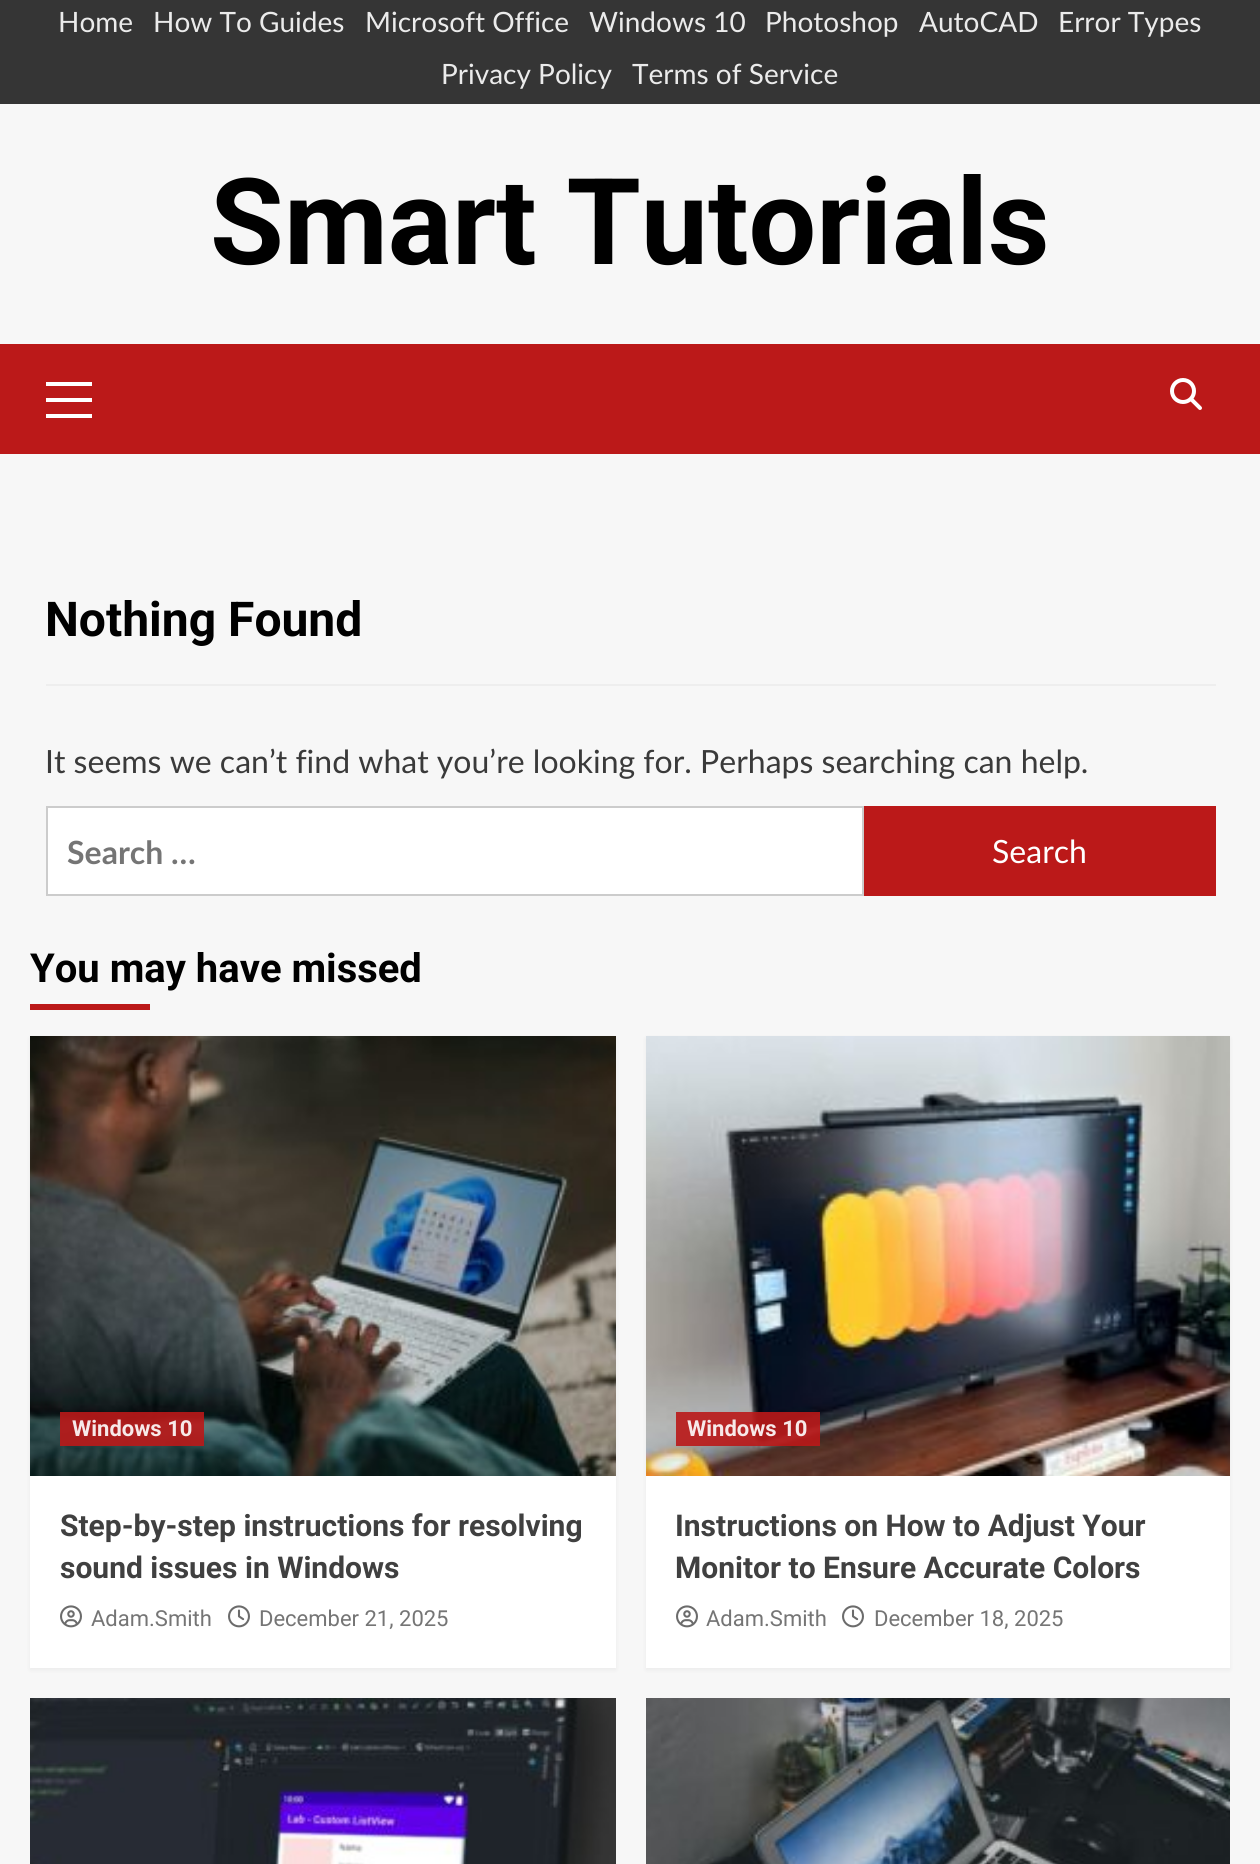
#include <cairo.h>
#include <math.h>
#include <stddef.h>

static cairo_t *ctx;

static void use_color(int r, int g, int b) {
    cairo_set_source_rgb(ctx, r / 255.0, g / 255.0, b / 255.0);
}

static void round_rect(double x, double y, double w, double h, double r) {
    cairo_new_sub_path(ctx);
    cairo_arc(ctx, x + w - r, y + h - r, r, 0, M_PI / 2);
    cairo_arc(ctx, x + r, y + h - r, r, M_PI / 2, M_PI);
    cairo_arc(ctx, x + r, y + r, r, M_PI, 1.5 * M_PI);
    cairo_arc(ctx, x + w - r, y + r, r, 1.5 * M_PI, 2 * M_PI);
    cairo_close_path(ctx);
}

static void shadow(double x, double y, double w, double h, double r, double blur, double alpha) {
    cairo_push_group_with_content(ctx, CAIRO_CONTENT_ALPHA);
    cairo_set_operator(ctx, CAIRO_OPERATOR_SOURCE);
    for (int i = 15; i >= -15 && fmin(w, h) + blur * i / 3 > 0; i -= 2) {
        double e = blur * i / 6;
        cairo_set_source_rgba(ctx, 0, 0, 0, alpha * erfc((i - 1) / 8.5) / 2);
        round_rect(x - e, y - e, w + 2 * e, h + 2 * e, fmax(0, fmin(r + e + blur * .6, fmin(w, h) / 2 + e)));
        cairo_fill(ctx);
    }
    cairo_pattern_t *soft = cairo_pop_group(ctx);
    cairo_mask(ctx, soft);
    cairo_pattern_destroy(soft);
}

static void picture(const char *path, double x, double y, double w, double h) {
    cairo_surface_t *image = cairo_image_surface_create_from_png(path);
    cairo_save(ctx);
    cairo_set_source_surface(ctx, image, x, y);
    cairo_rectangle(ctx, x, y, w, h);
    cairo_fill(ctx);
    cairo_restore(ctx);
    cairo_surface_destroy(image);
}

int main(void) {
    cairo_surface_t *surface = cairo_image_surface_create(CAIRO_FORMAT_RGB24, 1260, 1864);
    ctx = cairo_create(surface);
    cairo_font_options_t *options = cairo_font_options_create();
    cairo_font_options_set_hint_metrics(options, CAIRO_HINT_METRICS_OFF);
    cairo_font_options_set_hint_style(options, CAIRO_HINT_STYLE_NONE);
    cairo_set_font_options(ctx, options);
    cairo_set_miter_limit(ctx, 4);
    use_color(247, 247, 247);
    cairo_paint(ctx);
    use_color(53, 53, 53);
    cairo_rectangle(ctx, 0, 0, 1260, 104);
    cairo_fill(ctx);
    cairo_select_font_face(ctx, "Lato", CAIRO_FONT_SLANT_NORMAL, CAIRO_FONT_WEIGHT_NORMAL);
    cairo_set_font_size(ctx, 28);
    use_color(235, 235, 235);
    cairo_move_to(ctx, 58, 32);
    cairo_show_text(ctx, "Home");
    cairo_move_to(ctx, 153, 32);
    cairo_show_text(ctx, "How To Guides");
    cairo_move_to(ctx, 365, 32);
    cairo_show_text(ctx, "Microsoft Office");
    cairo_move_to(ctx, 589, 32);
    cairo_show_text(ctx, "Windows 10");
    cairo_move_to(ctx, 765, 32);
    cairo_show_text(ctx, "Photoshop");
    cairo_move_to(ctx, 919, 32);
    cairo_show_text(ctx, "AutoCAD");
    cairo_move_to(ctx, 1058, 32);
    cairo_show_text(ctx, "Error Types");
    cairo_move_to(ctx, 441, 84);
    cairo_show_text(ctx, "Privacy Policy");
    cairo_move_to(ctx, 632, 84);
    cairo_show_text(ctx, "Terms of Service");
    cairo_select_font_face(ctx, "Roboto", CAIRO_FONT_SLANT_NORMAL, CAIRO_FONT_WEIGHT_BOLD);
    cairo_set_font_size(ctx, 120);
    use_color(0, 0, 0);
    cairo_move_to(ctx, 210, 264);
    cairo_show_text(ctx, "Smart Tutorials");
    use_color(187, 25, 25);
    cairo_rectangle(ctx, 0, 344, 1260, 110);
    cairo_fill(ctx);
    use_color(255, 255, 255);
    cairo_rectangle(ctx, 46, 398, 46, 4);
    cairo_fill(ctx);
    cairo_rectangle(ctx, 46, 382, 46, 4);
    cairo_fill(ctx);
    cairo_rectangle(ctx, 46, 414, 46, 4);
    cairo_fill(ctx);
    picture("img1.png", 1170, 378, 32, 32);
    use_color(238, 238, 238);
    cairo_rectangle(ctx, 46, 684, 1170, 2);
    cairo_fill(ctx);
    cairo_set_font_size(ctx, 48);
    use_color(0, 0, 0);
    cairo_move_to(ctx, 45, 636);
    cairo_show_text(ctx, "Nothing Found");
    cairo_select_font_face(ctx, "Lato", CAIRO_FONT_SLANT_NORMAL, CAIRO_FONT_WEIGHT_NORMAL);
    cairo_set_font_size(ctx, 32);
    use_color(58, 58, 58);
    cairo_move_to(ctx, 45, 773);
    cairo_show_text(ctx, "It seems we can’t find what you’re looking for. Perhaps searching can help.");
    use_color(255, 255, 255);
    cairo_rectangle(ctx, 47, 807, 816, 88);
    cairo_fill_preserve(ctx);
    use_color(204, 204, 204);
    cairo_stroke(ctx);
    cairo_select_font_face(ctx, "Lato", CAIRO_FONT_SLANT_NORMAL, CAIRO_FONT_WEIGHT_BOLD);
    use_color(117, 117, 117);
    cairo_move_to(ctx, 67, 864);
    cairo_show_text(ctx, "Search …");
    use_color(187, 25, 25);
    cairo_rectangle(ctx, 864, 806, 352, 90);
    cairo_fill(ctx);
    cairo_select_font_face(ctx, "Lato", CAIRO_FONT_SLANT_NORMAL, CAIRO_FONT_WEIGHT_NORMAL);
    use_color(255, 255, 255);
    cairo_move_to(ctx, 992, 863);
    cairo_show_text(ctx, "Search");
    cairo_select_font_face(ctx, "Roboto", CAIRO_FONT_SLANT_NORMAL, CAIRO_FONT_WEIGHT_BOLD);
    cairo_set_font_size(ctx, 40);
    use_color(0, 0, 0);
    cairo_move_to(ctx, 30, 982);
    cairo_show_text(ctx, "You may have missed");
    use_color(187, 25, 25);
    cairo_rectangle(ctx, 30, 1004, 120, 6);
    cairo_fill(ctx);
    use_color(0, 0, 0);
    shadow(30, 1038, 586, 632, 0, 2, 0.05);
    use_color(255, 255, 255);
    cairo_rectangle(ctx, 30, 1476, 586, 192);
    cairo_fill(ctx);
    picture("img2.png", 30, 1036, 586, 440);
    cairo_set_source_rgba(ctx, 0.733, 0.098, 0.098, 0.9);
    cairo_rectangle(ctx, 60, 1412, 144, 34);
    cairo_fill(ctx);
    cairo_set_font_size(ctx, 22);
    use_color(247, 233, 233);
    cairo_move_to(ctx, 72, 1436);
    cairo_show_text(ctx, "Windows 10");
    cairo_set_font_size(ctx, 30);
    use_color(64, 64, 64);
    cairo_move_to(ctx, 60, 1536);
    cairo_show_text(ctx, "Step-by-step instructions for resolving");
    cairo_move_to(ctx, 60, 1578);
    cairo_show_text(ctx, "sound issues in Windows");
    picture("img3.png", 60, 1605, 22, 23);
    cairo_select_font_face(ctx, "Roboto", CAIRO_FONT_SLANT_NORMAL, CAIRO_FONT_WEIGHT_NORMAL);
    cairo_set_font_size(ctx, 22);
    use_color(117, 117, 117);
    cairo_move_to(ctx, 91, 1626);
    cairo_show_text(ctx, "Adam.Smith");
    picture("img4.png", 228, 1605, 22, 23);
    cairo_move_to(ctx, 259, 1626);
    cairo_show_text(ctx, "December 21, 2025");
    use_color(0, 0, 0);
    shadow(646, 1038, 584, 632, 0, 2, 0.05);
    use_color(255, 255, 255);
    cairo_rectangle(ctx, 646, 1476, 584, 192);
    cairo_fill(ctx);
    picture("img5.png", 646, 1036, 584, 440);
    cairo_set_source_rgba(ctx, 0.733, 0.098, 0.098, 0.9);
    cairo_rectangle(ctx, 676, 1412, 144, 34);
    cairo_fill(ctx);
    cairo_select_font_face(ctx, "Roboto", CAIRO_FONT_SLANT_NORMAL, CAIRO_FONT_WEIGHT_BOLD);
    use_color(247, 233, 233);
    cairo_move_to(ctx, 687, 1436);
    cairo_show_text(ctx, "Windows 10");
    cairo_set_font_size(ctx, 30);
    use_color(64, 64, 64);
    cairo_move_to(ctx, 675, 1536);
    cairo_show_text(ctx, "Instructions on How to Adjust Your");
    cairo_move_to(ctx, 675, 1578);
    cairo_show_text(ctx, "Monitor to Ensure Accurate Colors");
    picture("img3.png", 676, 1605, 22, 23);
    cairo_select_font_face(ctx, "Roboto", CAIRO_FONT_SLANT_NORMAL, CAIRO_FONT_WEIGHT_NORMAL);
    cairo_set_font_size(ctx, 22);
    use_color(117, 117, 117);
    cairo_move_to(ctx, 706, 1626);
    cairo_show_text(ctx, "Adam.Smith");
    picture("img4.png", 842, 1605, 22, 23);
    cairo_move_to(ctx, 874, 1626);
    cairo_show_text(ctx, "December 18, 2025");
    picture("img6.png", 30, 1698, 586, 166);
    picture("img7.png", 646, 1698, 584, 166);
    cairo_surface_write_to_png(surface, "result.png");
    cairo_font_options_destroy(options);
    cairo_destroy(ctx);
    cairo_surface_destroy(surface);
    return 0;
}
